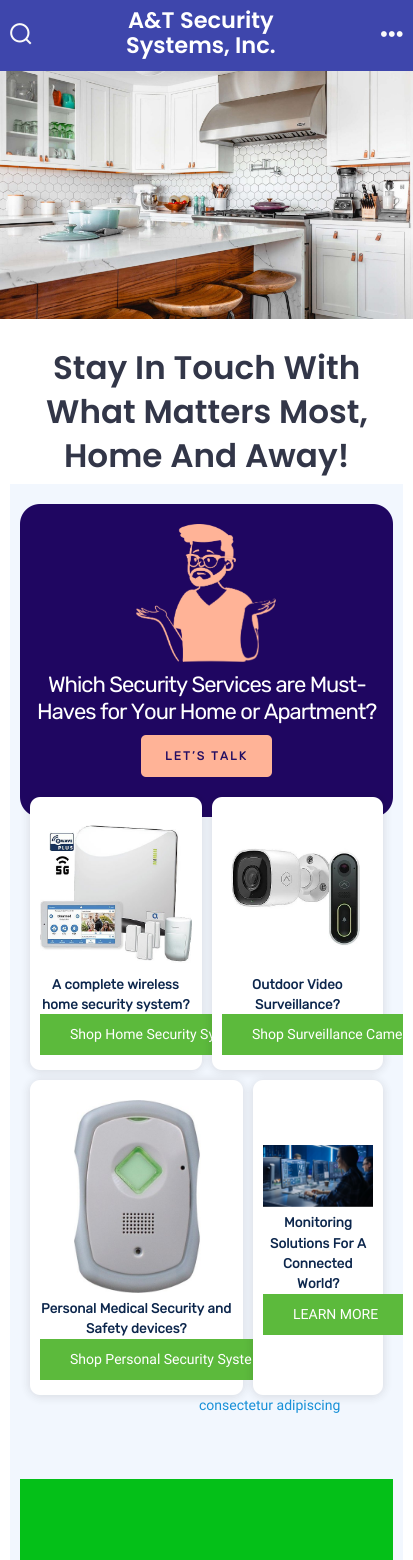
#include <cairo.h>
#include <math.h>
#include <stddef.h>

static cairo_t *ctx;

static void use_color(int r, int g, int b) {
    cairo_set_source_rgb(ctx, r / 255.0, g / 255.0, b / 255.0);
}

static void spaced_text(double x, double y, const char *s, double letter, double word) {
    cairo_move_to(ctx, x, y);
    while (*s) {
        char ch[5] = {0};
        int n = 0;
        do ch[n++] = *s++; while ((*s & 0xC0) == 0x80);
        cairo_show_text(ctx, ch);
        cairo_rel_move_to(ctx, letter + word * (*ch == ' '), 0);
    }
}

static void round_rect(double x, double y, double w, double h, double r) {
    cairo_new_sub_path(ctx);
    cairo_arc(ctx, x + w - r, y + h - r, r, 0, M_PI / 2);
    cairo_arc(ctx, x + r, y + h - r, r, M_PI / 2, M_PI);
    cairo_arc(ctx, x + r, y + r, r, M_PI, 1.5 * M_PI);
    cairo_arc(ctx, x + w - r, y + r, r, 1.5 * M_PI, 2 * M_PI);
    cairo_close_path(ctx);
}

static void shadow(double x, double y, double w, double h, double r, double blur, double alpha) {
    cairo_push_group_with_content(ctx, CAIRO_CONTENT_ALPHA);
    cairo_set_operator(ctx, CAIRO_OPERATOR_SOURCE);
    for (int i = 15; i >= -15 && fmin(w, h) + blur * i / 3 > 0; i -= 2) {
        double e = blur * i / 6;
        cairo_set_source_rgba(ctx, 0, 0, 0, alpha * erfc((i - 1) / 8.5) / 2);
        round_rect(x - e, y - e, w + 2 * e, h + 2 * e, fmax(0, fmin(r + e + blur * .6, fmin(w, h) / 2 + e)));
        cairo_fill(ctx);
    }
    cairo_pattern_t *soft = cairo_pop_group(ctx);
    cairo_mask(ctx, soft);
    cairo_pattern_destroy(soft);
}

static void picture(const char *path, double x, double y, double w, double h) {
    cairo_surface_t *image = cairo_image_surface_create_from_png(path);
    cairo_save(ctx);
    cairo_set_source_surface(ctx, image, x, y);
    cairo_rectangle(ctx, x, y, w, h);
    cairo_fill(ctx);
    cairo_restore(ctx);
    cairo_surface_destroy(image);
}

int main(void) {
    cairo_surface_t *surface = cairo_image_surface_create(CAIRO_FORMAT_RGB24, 413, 1560);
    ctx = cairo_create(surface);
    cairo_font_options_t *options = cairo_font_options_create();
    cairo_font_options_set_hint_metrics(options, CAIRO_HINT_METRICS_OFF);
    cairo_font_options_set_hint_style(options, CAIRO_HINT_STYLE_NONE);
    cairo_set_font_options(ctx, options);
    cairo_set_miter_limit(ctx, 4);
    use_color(255, 255, 255);
    cairo_paint(ctx);
    use_color(62, 70, 172);
    cairo_rectangle(ctx, 0, 0, 413, 71);
    cairo_fill(ctx);
    picture("img1.png", 10, 23, 22, 22);
    cairo_select_font_face(ctx, "Poppins SemiBold", CAIRO_FONT_SLANT_NORMAL, CAIRO_FONT_WEIGHT_NORMAL);
    cairo_set_font_size(ctx, 22.5);
    use_color(255, 255, 255);
    cairo_move_to(ctx, 128, 28);
    cairo_show_text(ctx, "A&T Security");
    cairo_move_to(ctx, 126, 53);
    cairo_show_text(ctx, "Systems, Inc.");
    picture("img2.png", 381, 31, 22, 6);
    picture("img3.png", 0, 71, 413, 248);
    cairo_set_font_size(ctx, 32.6);
    use_color(50, 54, 72);
    cairo_move_to(ctx, 53, 379);
    cairo_show_text(ctx, "Stay In Touch With");
    cairo_move_to(ctx, 46, 423);
    cairo_show_text(ctx, "What Matters Most,");
    cairo_move_to(ctx, 64, 467);
    cairo_show_text(ctx, "Home And Away!");
    use_color(242, 247, 254);
    cairo_rectangle(ctx, 10, 484, 393, 1076);
    cairo_fill(ctx);
    use_color(31, 6, 97);
    round_rect(20, 504, 373, 313, 20);
    cairo_fill(ctx);
    picture("img4.png", 136, 524, 140, 138);
    cairo_select_font_face(ctx, "Rubik", CAIRO_FONT_SLANT_NORMAL, CAIRO_FONT_WEIGHT_NORMAL);
    cairo_set_font_size(ctx, 22);
    use_color(255, 255, 255);
    spaced_text(48, 692, "Which Security Services are Must-", -1, 0);
    spaced_text(37, 719, "Haves for Your Home or Apartment?", -1, 0);
    use_color(255, 179, 151);
    round_rect(141, 735, 131, 42, 5);
    cairo_fill(ctx);
    cairo_select_font_face(ctx, "Rubik", CAIRO_FONT_SLANT_NORMAL, CAIRO_FONT_WEIGHT_BOLD);
    cairo_set_font_size(ctx, 12);
    use_color(37, 14, 98);
    spaced_text(165, 760, "LET’S TALK", 2, 0);
    use_color(0, 0, 0);
    shadow(30, 798, 172, 273, 10, 5, 0.13);
    use_color(255, 255, 255);
    round_rect(30, 797, 172, 273, 10);
    cairo_fill(ctx);
    picture("img5.png", 40, 825, 152, 138);
    cairo_set_font_size(ctx, 13.6);
    use_color(12, 38, 76);
    cairo_move_to(ctx, 52, 989);
    cairo_show_text(ctx, "A complete wireless");
    cairo_move_to(ctx, 42, 1009);
    cairo_show_text(ctx, "home security system?");
    use_color(92, 186, 60);
    cairo_rectangle(ctx, 40, 1014, 172, 41);
    cairo_fill(ctx);
    cairo_select_font_face(ctx, "Roboto", CAIRO_FONT_SLANT_NORMAL, CAIRO_FONT_WEIGHT_NORMAL);
    cairo_set_font_size(ctx, 14);
    use_color(255, 255, 255);
    cairo_move_to(ctx, 70, 1039);
    cairo_show_text(ctx, "Shop Home Security Sy");
    use_color(0, 0, 0);
    shadow(212, 798, 171, 273, 10, 5, 0.13);
    use_color(255, 255, 255);
    round_rect(212, 797, 171, 273, 10);
    cairo_fill(ctx);
    picture("img6.png", 231, 848, 129, 98);
    cairo_select_font_face(ctx, "Rubik", CAIRO_FONT_SLANT_NORMAL, CAIRO_FONT_WEIGHT_BOLD);
    cairo_set_font_size(ctx, 13.6);
    use_color(12, 38, 76);
    cairo_move_to(ctx, 252, 989);
    cairo_show_text(ctx, "Outdoor Video");
    cairo_move_to(ctx, 255, 1009);
    cairo_show_text(ctx, "Surveillance?");
    use_color(92, 186, 60);
    cairo_rectangle(ctx, 222, 1014, 181, 41);
    cairo_fill(ctx);
    cairo_select_font_face(ctx, "Roboto", CAIRO_FONT_SLANT_NORMAL, CAIRO_FONT_WEIGHT_NORMAL);
    cairo_set_font_size(ctx, 14);
    use_color(255, 255, 255);
    cairo_move_to(ctx, 252, 1039);
    cairo_show_text(ctx, "Shop Surveillance Came");
    use_color(0, 0, 0);
    shadow(30, 1081, 213, 315, 10, 5, 0.13);
    use_color(255, 255, 255);
    round_rect(30, 1080, 213, 315, 10);
    cairo_fill(ctx);
    use_color(92, 186, 60);
    cairo_rectangle(ctx, 40, 1339, 213, 41);
    cairo_fill(ctx);
    use_color(0, 0, 0);
    shadow(253, 1081, 130, 315, 10, 5, 0.13);
    use_color(255, 255, 255);
    round_rect(253, 1080, 130, 315, 10);
    cairo_fill(ctx);
    picture("img7.png", 263, 1145, 110, 62);
    cairo_select_font_face(ctx, "Rubik", CAIRO_FONT_SLANT_NORMAL, CAIRO_FONT_WEIGHT_BOLD);
    cairo_set_font_size(ctx, 13.6);
    use_color(12, 38, 76);
    cairo_move_to(ctx, 284, 1227);
    cairo_show_text(ctx, "Monitoring");
    cairo_move_to(ctx, 270, 1248);
    cairo_show_text(ctx, "Solutions For A");
    cairo_move_to(ctx, 283, 1268);
    cairo_show_text(ctx, "Connected");
    cairo_move_to(ctx, 297, 1288);
    cairo_show_text(ctx, "World?");
    use_color(92, 186, 60);
    cairo_rectangle(ctx, 263, 1294, 140, 41);
    cairo_fill(ctx);
    cairo_select_font_face(ctx, "Roboto", CAIRO_FONT_SLANT_NORMAL, CAIRO_FONT_WEIGHT_NORMAL);
    cairo_set_font_size(ctx, 14);
    use_color(255, 255, 255);
    cairo_move_to(ctx, 293, 1319);
    cairo_show_text(ctx, "LEARN MORE");
    picture("img8.png", 74, 1100, 127, 193);
    cairo_select_font_face(ctx, "Rubik", CAIRO_FONT_SLANT_NORMAL, CAIRO_FONT_WEIGHT_BOLD);
    cairo_set_font_size(ctx, 13.6);
    use_color(12, 38, 76);
    cairo_move_to(ctx, 41, 1313);
    cairo_show_text(ctx, "Personal Medical Security and");
    cairo_move_to(ctx, 86, 1333);
    cairo_show_text(ctx, "Safety devices?");
    cairo_select_font_face(ctx, "Roboto", CAIRO_FONT_SLANT_NORMAL, CAIRO_FONT_WEIGHT_NORMAL);
    cairo_set_font_size(ctx, 14);
    use_color(255, 255, 255);
    cairo_move_to(ctx, 70, 1364);
    cairo_show_text(ctx, "Shop Personal Security Syste");
    use_color(24, 144, 215);
    cairo_move_to(ctx, 199, 1410);
    cairo_show_text(ctx, "consectetur adipiscing");
    use_color(4, 192, 24);
    cairo_rectangle(ctx, 20, 1479, 373, 81);
    cairo_fill(ctx);
    cairo_surface_write_to_png(surface, "result.png");
    cairo_font_options_destroy(options);
    cairo_destroy(ctx);
    cairo_surface_destroy(surface);
    return 0;
}
